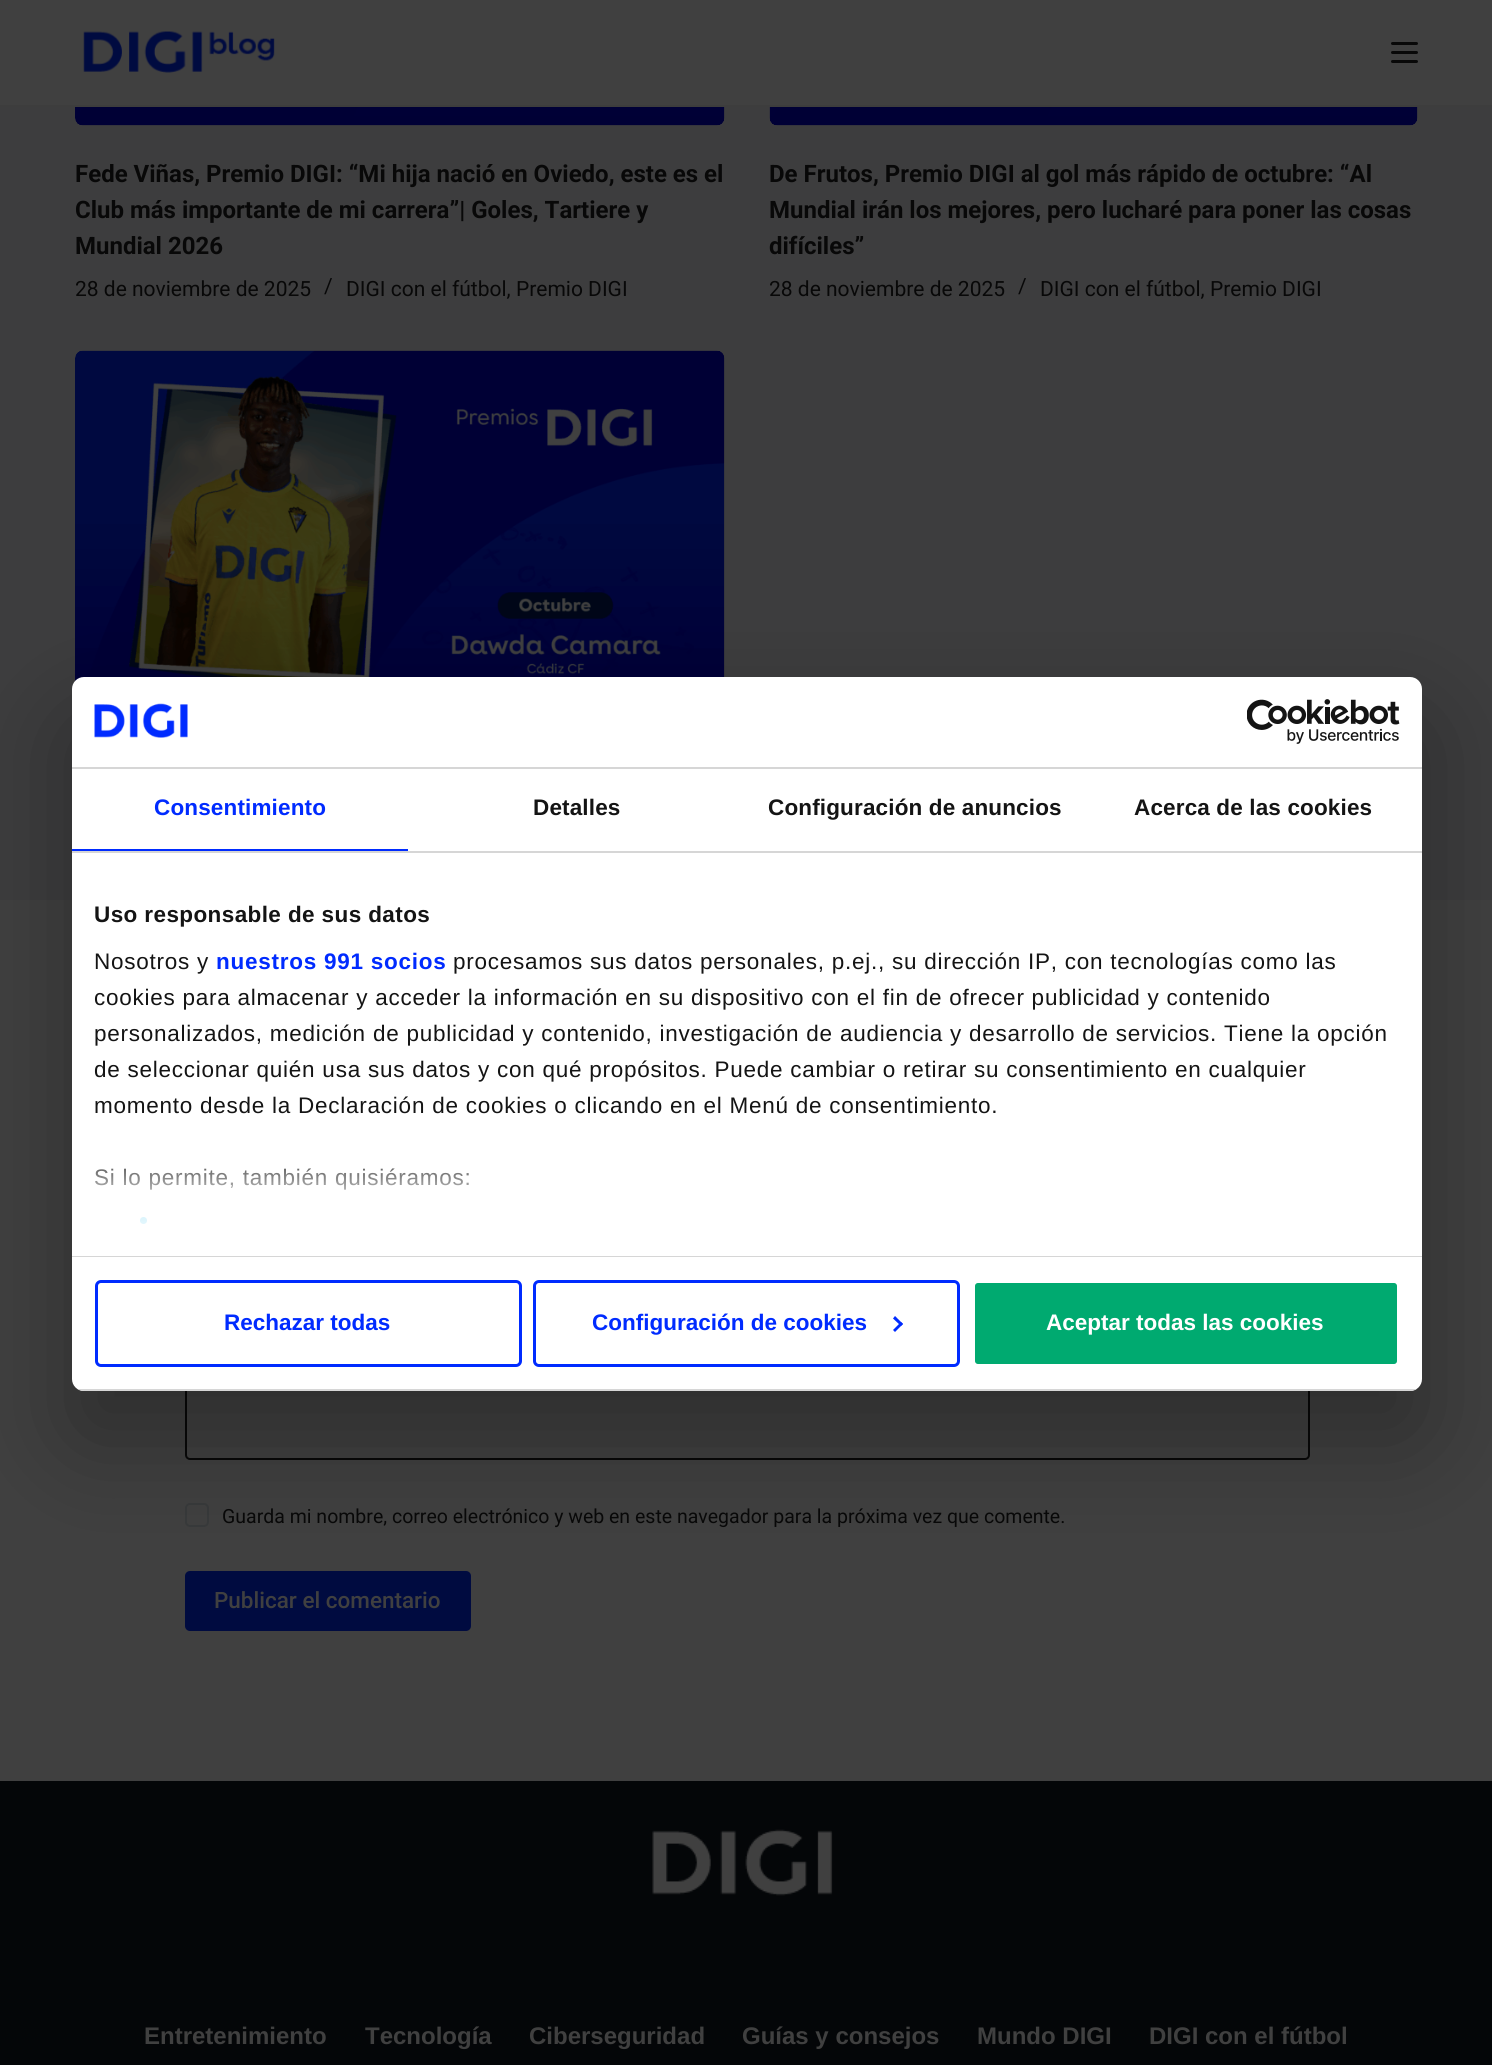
#include <cairo.h>
#include <math.h>
#include <stddef.h>

static cairo_t *ctx;

static void use_color(int r, int g, int b) {
    cairo_set_source_rgb(ctx, r / 255.0, g / 255.0, b / 255.0);
}

static void spaced_text(double x, double y, const char *s, double letter, double word) {
    cairo_move_to(ctx, x, y);
    while (*s) {
        char ch[5] = {0};
        int n = 0;
        do ch[n++] = *s++; while ((*s & 0xC0) == 0x80);
        cairo_show_text(ctx, ch);
        cairo_rel_move_to(ctx, letter + word * (*ch == ' '), 0);
    }
}

static void round_rect(double x, double y, double w, double h, double r) {
    cairo_new_sub_path(ctx);
    cairo_arc(ctx, x + w - r, y + h - r, r, 0, M_PI / 2);
    cairo_arc(ctx, x + r, y + h - r, r, M_PI / 2, M_PI);
    cairo_arc(ctx, x + r, y + r, r, M_PI, 1.5 * M_PI);
    cairo_arc(ctx, x + w - r, y + r, r, 1.5 * M_PI, 2 * M_PI);
    cairo_close_path(ctx);
}

static void shadow(double x, double y, double w, double h, double r, double blur, double alpha) {
    cairo_push_group_with_content(ctx, CAIRO_CONTENT_ALPHA);
    cairo_set_operator(ctx, CAIRO_OPERATOR_SOURCE);
    for (int i = 15; i >= -15 && fmin(w, h) + blur * i / 3 > 0; i -= 2) {
        double e = blur * i / 6;
        cairo_set_source_rgba(ctx, 0, 0, 0, alpha * erfc((i - 1) / 8.5) / 2);
        round_rect(x - e, y - e, w + 2 * e, h + 2 * e, fmax(0, fmin(r + e + blur * .6, fmin(w, h) / 2 + e)));
        cairo_fill(ctx);
    }
    cairo_pattern_t *soft = cairo_pop_group(ctx);
    cairo_mask(ctx, soft);
    cairo_pattern_destroy(soft);
}

static void picture(const char *path, double x, double y, double w, double h) {
    cairo_surface_t *image = cairo_image_surface_create_from_png(path);
    cairo_save(ctx);
    cairo_set_source_surface(ctx, image, x, y);
    cairo_rectangle(ctx, x, y, w, h);
    cairo_fill(ctx);
    cairo_restore(ctx);
    cairo_surface_destroy(image);
}

int main(void) {
    cairo_surface_t *surface = cairo_image_surface_create(CAIRO_FORMAT_RGB24, 1492, 2065);
    ctx = cairo_create(surface);
    cairo_font_options_t *options = cairo_font_options_create();
    cairo_font_options_set_hint_metrics(options, CAIRO_HINT_METRICS_OFF);
    cairo_font_options_set_hint_style(options, CAIRO_HINT_STYLE_NONE);
    cairo_set_font_options(ctx, options);
    cairo_set_miter_limit(ctx, 4);
    cairo_pattern_t *gradient;
    use_color(64, 64, 64);
    cairo_paint(ctx);
    use_color(61, 61, 61);
    cairo_rectangle(ctx, 0, 105, 1492, 2);
    cairo_fill(ctx);
    picture("img1.png", 83, 31, 192, 42);
    use_color(8, 8, 8);
    round_rect(1391, 42, 27, 3, 1.5);
    cairo_fill(ctx);
    round_rect(1391, 51, 27, 3, 1.5);
    cairo_fill(ctx);
    round_rect(1391, 60, 27, 3, 1.5);
    cairo_fill(ctx);
    use_color(61, 61, 62);
    cairo_rectangle(ctx, 0, 107, 1492, 793);
    cairo_fill(ctx);
    picture("img2.png", 75, 107, 650, 19);
    cairo_select_font_face(ctx, "Roboto", CAIRO_FONT_SLANT_NORMAL, CAIRO_FONT_WEIGHT_BOLD);
    cairo_set_font_size(ctx, 24);
    use_color(8, 8, 8);
    cairo_move_to(ctx, 75, 182);
    cairo_show_text(ctx, "Fede Viñas, Premio DIGI: “Mi hija nació en Oviedo, este es el");
    cairo_move_to(ctx, 75, 218);
    cairo_show_text(ctx, "Club más importante de mi carrera”| Goles, Tartiere y");
    cairo_move_to(ctx, 75, 254);
    cairo_show_text(ctx, "Mundial 2026");
    cairo_select_font_face(ctx, "Roboto", CAIRO_FONT_SLANT_NORMAL, CAIRO_FONT_WEIGHT_NORMAL);
    cairo_set_font_size(ctx, 21);
    cairo_move_to(ctx, 75, 296);
    cairo_show_text(ctx, "28 de noviembre de 2025");
    cairo_move_to(ctx, 324, 293);
    cairo_show_text(ctx, "/");
    cairo_move_to(ctx, 346, 296);
    cairo_show_text(ctx, "DIGI con el fútbol, Premio DIGI");
    picture("img3.png", 769, 107, 649, 19);
    cairo_select_font_face(ctx, "Roboto", CAIRO_FONT_SLANT_NORMAL, CAIRO_FONT_WEIGHT_BOLD);
    cairo_set_font_size(ctx, 24);
    cairo_move_to(ctx, 769, 182);
    cairo_show_text(ctx, "De Frutos, Premio DIGI al gol más rápido de octubre: “Al");
    cairo_move_to(ctx, 769, 218);
    cairo_show_text(ctx, "Mundial irán los mejores, pero lucharé para poner las cosas");
    cairo_move_to(ctx, 769, 254);
    cairo_show_text(ctx, "difíciles”");
    cairo_select_font_face(ctx, "Roboto", CAIRO_FONT_SLANT_NORMAL, CAIRO_FONT_WEIGHT_NORMAL);
    cairo_set_font_size(ctx, 21);
    cairo_move_to(ctx, 769, 296);
    cairo_show_text(ctx, "28 de noviembre de 2025");
    cairo_move_to(ctx, 1018, 293);
    cairo_show_text(ctx, "/");
    cairo_move_to(ctx, 1040, 296);
    cairo_show_text(ctx, "DIGI con el fútbol, Premio DIGI");
    picture("img4.png", 75, 350, 650, 332);
    round_rect(186, 1206, 1123, 253, 4);
    cairo_stroke(ctx);
    round_rect(186, 1504, 22, 22, 4);
    use_color(56, 58, 59);
    cairo_stroke(ctx);
    cairo_set_font_size(ctx, 19.5);
    use_color(8, 8, 8);
    cairo_move_to(ctx, 222, 1523);
    cairo_show_text(ctx, "Guarda mi nombre, correo electrónico y web en este navegador para la próxima vez que comente.");
    use_color(0, 11, 64);
    round_rect(185, 1571, 286, 60, 5);
    cairo_fill(ctx);
    cairo_select_font_face(ctx, "Roboto Medium", CAIRO_FONT_SLANT_NORMAL, CAIRO_FONT_WEIGHT_NORMAL);
    cairo_set_font_size(ctx, 22.5);
    use_color(64, 64, 64);
    cairo_move_to(ctx, 214, 1608);
    cairo_show_text(ctx, "Publicar el comentario");
    use_color(4, 6, 8);
    cairo_rectangle(ctx, 0, 1781, 1492, 284);
    cairo_fill(ctx);
    picture("img5.png", 652, 1829, 181, 67);
    cairo_select_font_face(ctx, "Liberation Sans", CAIRO_FONT_SLANT_NORMAL, CAIRO_FONT_WEIGHT_BOLD);
    cairo_set_font_size(ctx, 24);
    use_color(64, 64, 64);
    cairo_move_to(ctx, 144, 2044);
    cairo_show_text(ctx, "Entretenimiento");
    cairo_move_to(ctx, 365, 2044);
    cairo_show_text(ctx, "Tecnología");
    cairo_move_to(ctx, 529, 2044);
    cairo_show_text(ctx, "Ciberseguridad");
    cairo_move_to(ctx, 742, 2044);
    cairo_show_text(ctx, "Guías y consejos");
    cairo_move_to(ctx, 977, 2044);
    cairo_show_text(ctx, "Mundo DIGI");
    cairo_move_to(ctx, 1149, 2044);
    cairo_show_text(ctx, "DIGI con el fútbol");
    use_color(0, 0, 0);
    shadow(72, 725, 1350, 714, 12, 51, 0.3);
    use_color(255, 255, 255);
    round_rect(72, 677, 1350, 714, 12);
    cairo_fill(ctx);
    use_color(214, 214, 214);
    cairo_rectangle(ctx, 72, 767, 1350, 2);
    cairo_fill(ctx);
    picture("img6.png", 94, 703, 94, 35);
    picture("img7.png", 1247, 699, 153, 45);
    cairo_rectangle(ctx, 72, 851, 1350, 2);
    cairo_fill(ctx);
    use_color(0, 43, 255);
    cairo_rectangle(ctx, 72, 849, 336, 2);
    cairo_fill(ctx);
    cairo_set_font_size(ctx, 22.5);
    spaced_text(154, 815, "Consentimiento", 0.15, 0);
    use_color(20, 20, 20);
    spaced_text(533, 815, "Detalles", 0.15, 0);
    spaced_text(768, 815, "Configuración de anuncios", 0.15, 0);
    spaced_text(1134, 815, "Acerca de las cookies", 0.15, 0);
    use_color(214, 214, 214);
    cairo_rectangle(ctx, 72, 1256, 1350, 1);
    cairo_fill(ctx);
    use_color(20, 20, 20);
    spaced_text(94, 922, "Uso responsable de sus datos", 0.4, 0);
    cairo_select_font_face(ctx, "Liberation Sans", CAIRO_FONT_SLANT_NORMAL, CAIRO_FONT_WEIGHT_NORMAL);
    spaced_text(94, 969, "Nosotros y", 0.75, 0);
    cairo_select_font_face(ctx, "Liberation Sans", CAIRO_FONT_SLANT_NORMAL, CAIRO_FONT_WEIGHT_BOLD);
    use_color(0, 43, 255);
    spaced_text(216, 969, "nuestros 991 socios", 0.75, 0);
    cairo_select_font_face(ctx, "Liberation Sans", CAIRO_FONT_SLANT_NORMAL, CAIRO_FONT_WEIGHT_NORMAL);
    use_color(20, 20, 20);
    spaced_text(453, 969, "procesamos sus datos personales, p.ej., su dirección IP, con tecnologías como las", 0.75, 0);
    spaced_text(94, 1005, "cookies para almacenar y acceder la información en su dispositivo con el fin de ofrecer publicidad y contenido", 0.75, 0);
    spaced_text(94, 1041, "personalizados, medición de publicidad y contenido, investigación de audiencia y desarrollo de servicios. Tiene la opción", 0.75, 0);
    spaced_text(94, 1077, "de seleccionar quién usa sus datos y con qué propósitos. Puede cambiar o retirar su consentimiento en cualquier", 0.75, 0);
    spaced_text(94, 1113, "momento desde la Declaración de cookies o clicando en el Menú de consentimiento.", 0.75, 0);
    spaced_text(94, 1185, "Si lo permite, también quisiéramos:", 0.75, 0);
    use_color(0, 177, 235);
    cairo_new_path(ctx);
    cairo_arc(ctx, 143.5, 1220.5, 3.5, 0, 2 * M_PI);
    cairo_fill(ctx);
    gradient = cairo_pattern_create_linear(737, 1256, 737, 1143);
    cairo_pattern_add_color_stop_rgba(gradient, 0, 1, 1, 1, 1);
    cairo_pattern_add_color_stop_rgba(gradient, 0.5, 1, 1, 1, 0.8);
    cairo_pattern_add_color_stop_rgba(gradient, 1, 1, 1, 1, 0);
    cairo_set_source(ctx, gradient);
    cairo_pattern_destroy(gradient);
    cairo_rectangle(ctx, 94, 1168, 375, 56);
    cairo_fill(ctx);
    cairo_save(ctx);
    round_rect(72, 677, 1350, 714, 12);
    cairo_clip(ctx);
    use_color(214, 214, 214);
    cairo_rectangle(ctx, 72, 1389, 1350, 2);
    cairo_fill(ctx);
    cairo_restore(ctx);
    round_rect(96.5, 1281.5, 424, 84, 4.5);
    use_color(0, 43, 255);
    cairo_set_line_width(ctx, 3);
    cairo_stroke(ctx);
    cairo_select_font_face(ctx, "Liberation Sans", CAIRO_FONT_SLANT_NORMAL, CAIRO_FONT_WEIGHT_BOLD);
    cairo_move_to(ctx, 224, 1330);
    cairo_show_text(ctx, "Rechazar todas");
    round_rect(534.5, 1281.5, 424, 84, 4.5);
    cairo_stroke(ctx);
    cairo_move_to(ctx, 592, 1330);
    cairo_show_text(ctx, "Configuración de cookies");
    cairo_new_path(ctx);
    cairo_move_to(ctx, 895, 1316);
    cairo_line_to(ctx, 903, 1324);
    cairo_line_to(ctx, 901, 1326);
    cairo_line_to(ctx, 893, 1318.5);
    cairo_close_path(ctx);
    cairo_fill(ctx);
    cairo_new_path(ctx);
    cairo_move_to(ctx, 901, 1322);
    cairo_line_to(ctx, 903, 1324);
    cairo_line_to(ctx, 895, 1332);
    cairo_line_to(ctx, 893, 1330);
    cairo_close_path(ctx);
    cairo_fill(ctx);
    use_color(0, 170, 112);
    round_rect(973.5, 1281.5, 425, 84, 4.5);
    cairo_fill_preserve(ctx);
    use_color(255, 255, 255);
    cairo_stroke(ctx);
    cairo_move_to(ctx, 1046, 1330);
    cairo_show_text(ctx, "Aceptar todas las cookies");
    cairo_surface_write_to_png(surface, "result.png");
    cairo_font_options_destroy(options);
    cairo_destroy(ctx);
    cairo_surface_destroy(surface);
    return 0;
}
